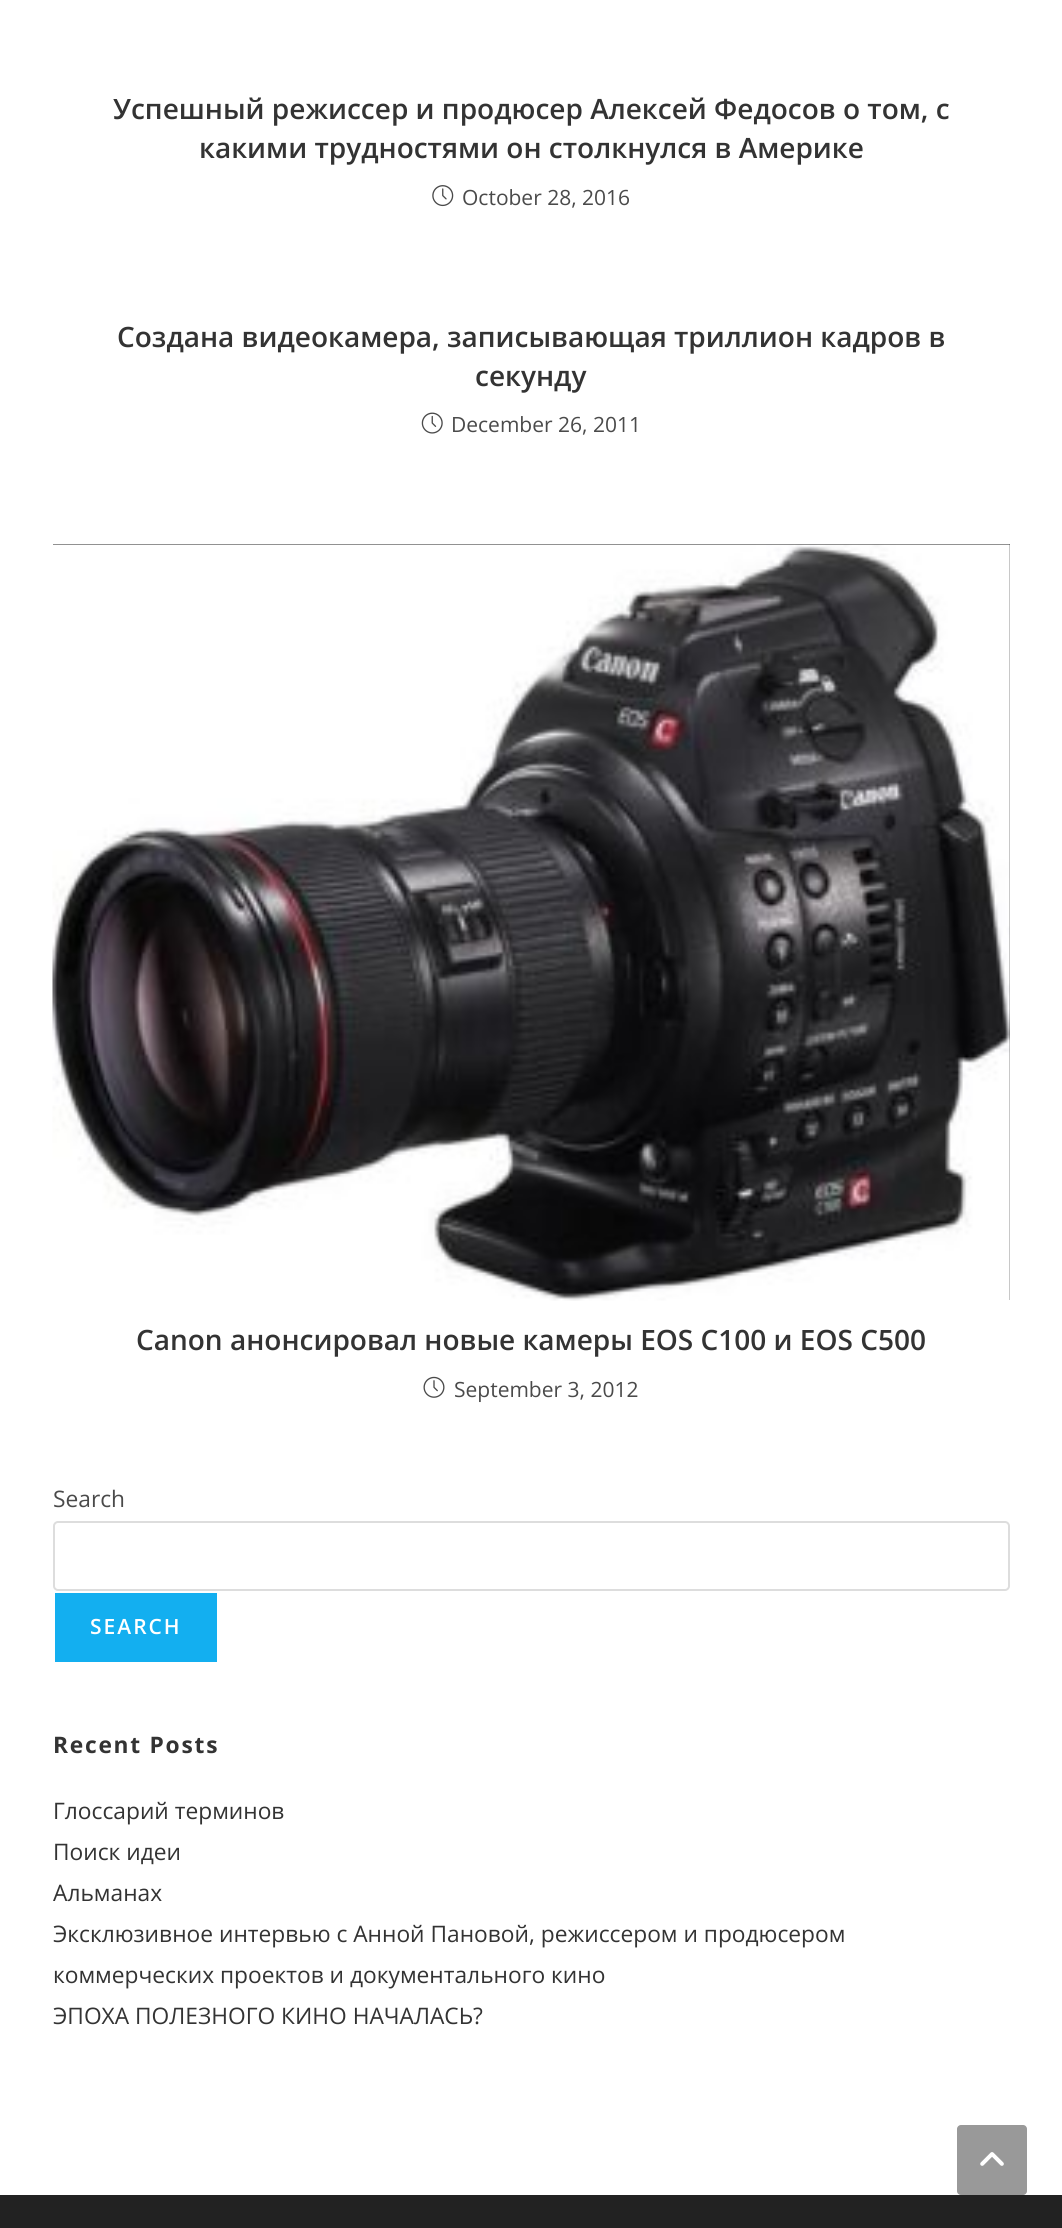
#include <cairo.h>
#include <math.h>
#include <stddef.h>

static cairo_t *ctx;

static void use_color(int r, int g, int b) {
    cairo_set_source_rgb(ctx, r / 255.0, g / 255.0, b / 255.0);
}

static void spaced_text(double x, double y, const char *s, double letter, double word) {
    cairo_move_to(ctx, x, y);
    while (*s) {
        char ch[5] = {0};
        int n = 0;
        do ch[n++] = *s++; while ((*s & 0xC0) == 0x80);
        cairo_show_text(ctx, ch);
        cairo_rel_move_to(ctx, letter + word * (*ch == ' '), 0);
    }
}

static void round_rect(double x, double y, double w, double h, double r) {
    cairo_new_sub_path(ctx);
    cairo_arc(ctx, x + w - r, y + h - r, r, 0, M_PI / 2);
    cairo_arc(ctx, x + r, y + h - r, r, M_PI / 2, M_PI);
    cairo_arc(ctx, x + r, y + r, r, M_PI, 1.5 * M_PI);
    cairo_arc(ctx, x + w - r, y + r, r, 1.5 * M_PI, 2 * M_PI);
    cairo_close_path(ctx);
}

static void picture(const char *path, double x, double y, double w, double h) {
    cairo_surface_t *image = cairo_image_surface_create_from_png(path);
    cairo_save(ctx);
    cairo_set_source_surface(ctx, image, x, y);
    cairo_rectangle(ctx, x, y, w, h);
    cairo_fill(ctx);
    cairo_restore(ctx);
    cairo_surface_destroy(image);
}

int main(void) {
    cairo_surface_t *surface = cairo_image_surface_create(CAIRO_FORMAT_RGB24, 1062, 2228);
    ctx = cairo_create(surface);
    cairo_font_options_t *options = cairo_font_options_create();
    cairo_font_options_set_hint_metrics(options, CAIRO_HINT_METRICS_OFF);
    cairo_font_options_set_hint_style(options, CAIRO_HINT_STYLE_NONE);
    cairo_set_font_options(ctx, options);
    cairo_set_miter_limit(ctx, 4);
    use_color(255, 255, 255);
    cairo_paint(ctx);
    cairo_select_font_face(ctx, "Open Sans SemiBold", CAIRO_FONT_SLANT_NORMAL, CAIRO_FONT_WEIGHT_NORMAL);
    cairo_set_font_size(ctx, 28);
    use_color(51, 51, 51);
    cairo_move_to(ctx, 113, 119);
    cairo_show_text(ctx, "Успешный режиссер и продюсер Алексей Федосов о том, с");
    cairo_move_to(ctx, 199, 158);
    cairo_show_text(ctx, "какими трудностями он столкнулся в Америке");
    picture("img1.png", 432, 185, 22, 22);
    cairo_select_font_face(ctx, "Open Sans", CAIRO_FONT_SLANT_NORMAL, CAIRO_FONT_WEIGHT_NORMAL);
    cairo_set_font_size(ctx, 21);
    use_color(74, 74, 74);
    cairo_move_to(ctx, 462, 205);
    cairo_show_text(ctx, "October 28, 2016");
    cairo_select_font_face(ctx, "Open Sans SemiBold", CAIRO_FONT_SLANT_NORMAL, CAIRO_FONT_WEIGHT_NORMAL);
    cairo_set_font_size(ctx, 28);
    use_color(51, 51, 51);
    cairo_move_to(ctx, 117, 347);
    cairo_show_text(ctx, "Создана видеокамера, записывающая триллион кадров в");
    cairo_move_to(ctx, 475, 386);
    cairo_show_text(ctx, "секунду");
    picture("img2.png", 421, 412, 22, 22);
    cairo_select_font_face(ctx, "Open Sans", CAIRO_FONT_SLANT_NORMAL, CAIRO_FONT_WEIGHT_NORMAL);
    cairo_set_font_size(ctx, 21);
    use_color(74, 74, 74);
    cairo_move_to(ctx, 451, 432);
    cairo_show_text(ctx, "December 26, 2011");
    use_color(34, 34, 34);
    cairo_rectangle(ctx, 53, 544, 957, 756);
    cairo_fill(ctx);
    picture("img3.png", 52, 544, 958, 757);
    cairo_select_font_face(ctx, "Open Sans SemiBold", CAIRO_FONT_SLANT_NORMAL, CAIRO_FONT_WEIGHT_NORMAL);
    cairo_set_font_size(ctx, 28);
    use_color(51, 51, 51);
    cairo_move_to(ctx, 136, 1350);
    cairo_show_text(ctx, "Canon анонсировал новые камеры EOS C100 и EOS С500");
    picture("img4.png", 423, 1376, 22, 22);
    cairo_select_font_face(ctx, "Open Sans", CAIRO_FONT_SLANT_NORMAL, CAIRO_FONT_WEIGHT_NORMAL);
    cairo_set_font_size(ctx, 21);
    use_color(74, 74, 74);
    cairo_move_to(ctx, 454, 1397);
    cairo_show_text(ctx, "September 3, 2012");
    cairo_set_font_size(ctx, 22.75);
    cairo_move_to(ctx, 53, 1507);
    cairo_show_text(ctx, "Search");
    round_rect(54, 1522, 955, 68, 4);
    use_color(221, 221, 221);
    cairo_stroke(ctx);
    use_color(19, 175, 240);
    cairo_rectangle(ctx, 55, 1593, 162, 69);
    cairo_fill(ctx);
    cairo_select_font_face(ctx, "Open Sans SemiBold", CAIRO_FONT_SLANT_NORMAL, CAIRO_FONT_WEIGHT_NORMAL);
    cairo_set_font_size(ctx, 21);
    use_color(255, 255, 255);
    spaced_text(90, 1634, "SEARCH", 2, 0);
    cairo_select_font_face(ctx, "Open Sans", CAIRO_FONT_SLANT_NORMAL, CAIRO_FONT_WEIGHT_BOLD);
    cairo_set_font_size(ctx, 22.75);
    use_color(51, 51, 51);
    spaced_text(53, 1753, "Recent Posts", 1.75, 0);
    cairo_select_font_face(ctx, "Open Sans", CAIRO_FONT_SLANT_NORMAL, CAIRO_FONT_WEIGHT_NORMAL);
    cairo_move_to(ctx, 53, 1819);
    cairo_show_text(ctx, "Глоссарий терминов");
    cairo_move_to(ctx, 53, 1860);
    cairo_show_text(ctx, "Поиск идеи");
    cairo_move_to(ctx, 53, 1901);
    cairo_show_text(ctx, "Альманах");
    cairo_move_to(ctx, 53, 1942);
    cairo_show_text(ctx, "Эксклюзивное интервью с Анной Пановой, режиссером и продюсером");
    cairo_move_to(ctx, 53, 1983);
    cairo_show_text(ctx, "коммерческих проектов и документального кино");
    cairo_move_to(ctx, 53, 2024);
    cairo_show_text(ctx, "ЭПОХА ПОЛЕЗНОГО КИНО НАЧАЛАСЬ?");
    use_color(34, 34, 34);
    cairo_rectangle(ctx, 0, 2195, 1062, 33);
    cairo_fill(ctx);
    use_color(153, 153, 153);
    round_rect(957, 2125, 70, 70, 4);
    cairo_fill(ctx);
    picture("img5.png", 980, 2152, 24, 14);
    cairo_surface_write_to_png(surface, "result.png");
    cairo_font_options_destroy(options);
    cairo_destroy(ctx);
    cairo_surface_destroy(surface);
    return 0;
}
